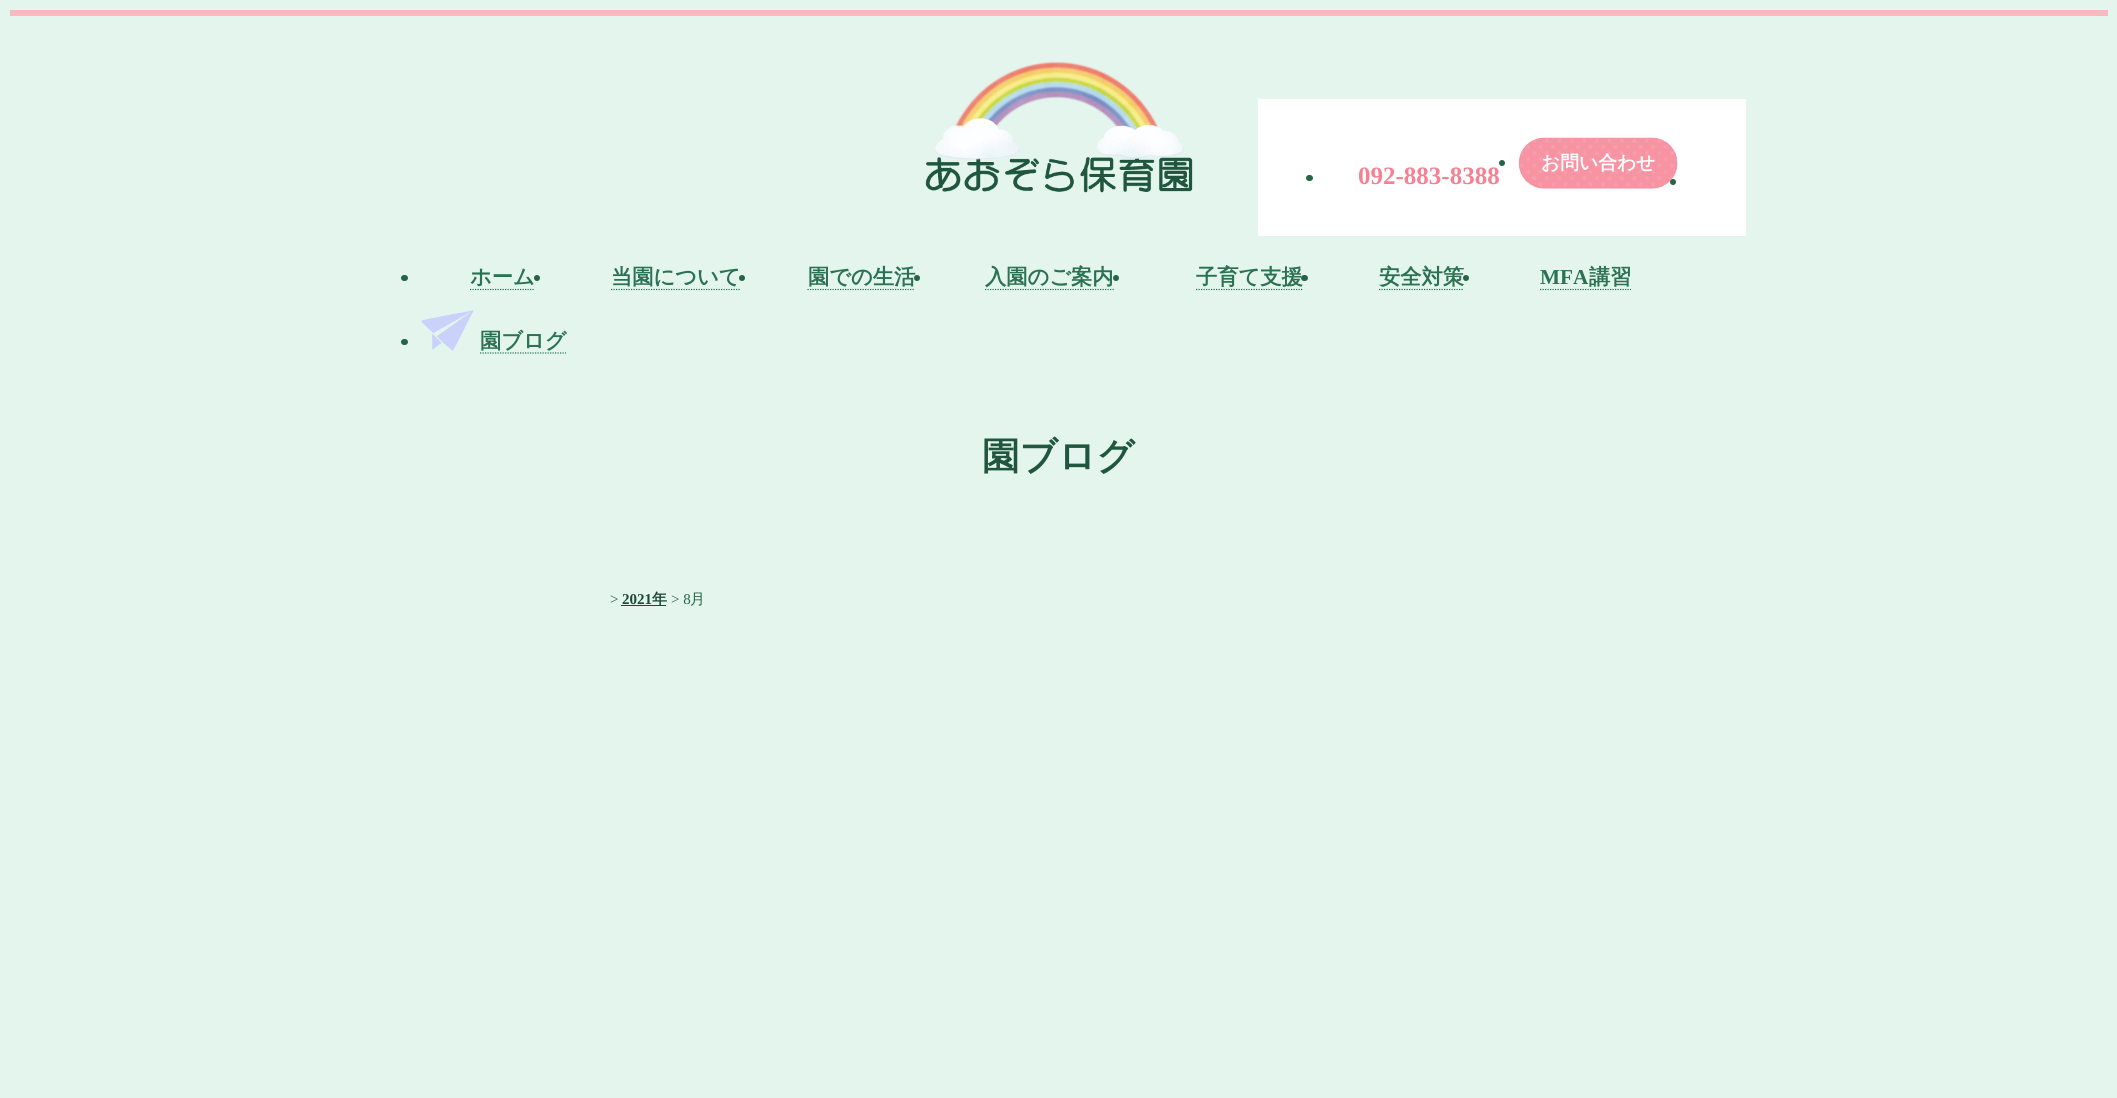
#include <cairo.h>
#include <math.h>
#include <stddef.h>

static cairo_t *ctx;

static void use_color(int r, int g, int b) {
    cairo_set_source_rgb(ctx, r / 255.0, g / 255.0, b / 255.0);
}

static void round_rect(double x, double y, double w, double h, double r) {
    cairo_new_sub_path(ctx);
    cairo_arc(ctx, x + w - r, y + h - r, r, 0, M_PI / 2);
    cairo_arc(ctx, x + r, y + h - r, r, M_PI / 2, M_PI);
    cairo_arc(ctx, x + r, y + r, r, M_PI, 1.5 * M_PI);
    cairo_arc(ctx, x + w - r, y + r, r, 1.5 * M_PI, 2 * M_PI);
    cairo_close_path(ctx);
}

static void picture(const char *path, double x, double y, double w, double h) {
    cairo_surface_t *image = cairo_image_surface_create_from_png(path);
    cairo_save(ctx);
    cairo_set_source_surface(ctx, image, x, y);
    cairo_rectangle(ctx, x, y, w, h);
    cairo_fill(ctx);
    cairo_restore(ctx);
    cairo_surface_destroy(image);
}

int main(void) {
    cairo_surface_t *surface = cairo_image_surface_create(CAIRO_FORMAT_RGB24, 2117, 1098);
    ctx = cairo_create(surface);
    cairo_font_options_t *options = cairo_font_options_create();
    cairo_font_options_set_hint_metrics(options, CAIRO_HINT_METRICS_OFF);
    cairo_font_options_set_hint_style(options, CAIRO_HINT_STYLE_NONE);
    cairo_set_font_options(ctx, options);
    cairo_set_miter_limit(ctx, 4);
    use_color(227, 245, 237);
    cairo_paint(ctx);
    use_color(250, 184, 193);
    cairo_rectangle(ctx, 10, 10, 2098, 6);
    cairo_fill(ctx);
    picture("img1.png", 925, 61, 268, 132);
    use_color(255, 255, 255);
    cairo_rectangle(ctx, 1258, 99, 488, 137);
    cairo_fill(ctx);
    use_color(37, 101, 70);
    cairo_arc(ctx, 1502, 163, 3, 0, 2 * M_PI);
    cairo_fill(ctx);
    picture("img2.png", 1518, 137, 160, 52);
    cairo_select_font_face(ctx, "WenQuanYi Zen Hei", CAIRO_FONT_SLANT_NORMAL, CAIRO_FONT_WEIGHT_BOLD);
    cairo_set_font_size(ctx, 18.75);
    use_color(255, 255, 255);
    cairo_move_to(ctx, 1541, 169);
    cairo_show_text(ctx, "お問い合わせ");
    use_color(37, 101, 70);
    round_rect(1306, 175, 7, 6, 3);
    cairo_fill(ctx);
    cairo_select_font_face(ctx, "Liberation Serif", CAIRO_FONT_SLANT_NORMAL, CAIRO_FONT_WEIGHT_BOLD);
    cairo_set_font_size(ctx, 25);
    use_color(245, 129, 146);
    cairo_move_to(ctx, 1358, 184);
    cairo_show_text(ctx, "092-883-8388");
    use_color(37, 101, 70);
    cairo_new_path(ctx);
    cairo_arc(ctx, 1673, 182, 3, 0, 2 * M_PI);
    cairo_fill(ctx);
    round_rect(401, 275, 7, 6, 3);
    cairo_fill(ctx);
    cairo_select_font_face(ctx, "WenQuanYi Zen Hei", CAIRO_FONT_SLANT_NORMAL, CAIRO_FONT_WEIGHT_BOLD);
    cairo_set_font_size(ctx, 21.25);
    use_color(42, 114, 82);
    cairo_move_to(ctx, 470, 284);
    cairo_show_text(ctx, "ホーム");
    cairo_new_path(ctx);
    cairo_move_to(ctx, 470, 289.5);
    cairo_line_to(ctx, 535, 289.5);
    use_color(42, 115, 83);
    cairo_set_line_width(ctx, 1.2);
    cairo_set_dash(ctx, (double[]){1.25, 1.25}, 2, 0);
    cairo_stroke(ctx);
    use_color(37, 101, 70);
    cairo_arc(ctx, 537, 278, 3, 0, 2 * M_PI);
    cairo_fill(ctx);
    use_color(42, 114, 82);
    cairo_move_to(ctx, 611, 284);
    cairo_show_text(ctx, "当園について");
    cairo_new_path(ctx);
    cairo_move_to(ctx, 611, 289.5);
    cairo_line_to(ctx, 740, 289.5);
    use_color(42, 115, 83);
    cairo_stroke(ctx);
    use_color(37, 101, 70);
    cairo_arc(ctx, 742, 278, 3, 0, 2 * M_PI);
    cairo_fill(ctx);
    use_color(42, 114, 82);
    cairo_move_to(ctx, 808, 284);
    cairo_show_text(ctx, "園での生活");
    cairo_new_path(ctx);
    cairo_move_to(ctx, 807.5, 289.5);
    cairo_line_to(ctx, 915, 289.5);
    use_color(42, 115, 83);
    cairo_stroke(ctx);
    use_color(37, 101, 70);
    cairo_arc(ctx, 917, 278, 3, 0, 2 * M_PI);
    cairo_fill(ctx);
    use_color(42, 114, 82);
    cairo_move_to(ctx, 985, 284);
    cairo_show_text(ctx, "入園のご案内");
    cairo_new_path(ctx);
    cairo_move_to(ctx, 985, 289.5);
    cairo_line_to(ctx, 1114, 289.5);
    use_color(42, 115, 83);
    cairo_stroke(ctx);
    use_color(37, 101, 70);
    cairo_arc(ctx, 1116, 278, 3, 0, 2 * M_PI);
    cairo_fill(ctx);
    use_color(42, 114, 82);
    cairo_move_to(ctx, 1196, 284);
    cairo_show_text(ctx, "子育て支援");
    cairo_new_path(ctx);
    cairo_move_to(ctx, 1196, 289.5);
    cairo_line_to(ctx, 1302.5, 289.5);
    use_color(42, 115, 83);
    cairo_stroke(ctx);
    use_color(37, 101, 70);
    round_rect(1301, 275, 7, 6, 3);
    cairo_fill(ctx);
    use_color(42, 114, 82);
    cairo_move_to(ctx, 1379, 284);
    cairo_show_text(ctx, "安全対策");
    cairo_new_path(ctx);
    cairo_move_to(ctx, 1379, 289.5);
    cairo_line_to(ctx, 1464, 289.5);
    use_color(42, 115, 83);
    cairo_stroke(ctx);
    use_color(37, 101, 70);
    cairo_arc(ctx, 1466, 278, 3, 0, 2 * M_PI);
    cairo_fill(ctx);
    cairo_select_font_face(ctx, "Liberation Serif", CAIRO_FONT_SLANT_NORMAL, CAIRO_FONT_WEIGHT_BOLD);
    use_color(42, 114, 82);
    cairo_move_to(ctx, 1540, 284);
    cairo_show_text(ctx, "MFA");
    cairo_new_path(ctx);
    cairo_move_to(ctx, 1540, 289.5);
    cairo_line_to(ctx, 1631, 289.5);
    use_color(42, 115, 83);
    cairo_stroke(ctx);
    cairo_select_font_face(ctx, "WenQuanYi Zen Hei", CAIRO_FONT_SLANT_NORMAL, CAIRO_FONT_WEIGHT_BOLD);
    use_color(42, 114, 82);
    cairo_move_to(ctx, 1589, 284);
    cairo_show_text(ctx, "講習");
    use_color(37, 101, 70);
    round_rect(401, 339, 7, 6, 3);
    cairo_fill(ctx);
    picture("img3.png", 421, 310, 53, 41);
    use_color(42, 114, 82);
    cairo_move_to(ctx, 480, 348);
    cairo_show_text(ctx, "園ブログ");
    cairo_new_path(ctx);
    cairo_move_to(ctx, 480, 353);
    cairo_line_to(ctx, 566, 353);
    use_color(42, 115, 83);
    cairo_stroke(ctx);
    cairo_set_font_size(ctx, 37.5);
    use_color(32, 86, 62);
    cairo_move_to(ctx, 982, 469);
    cairo_show_text(ctx, "園ブログ");
    cairo_select_font_face(ctx, "Liberation Serif", CAIRO_FONT_SLANT_NORMAL, CAIRO_FONT_WEIGHT_NORMAL);
    cairo_set_font_size(ctx, 15);
    use_color(37, 101, 70);
    cairo_move_to(ctx, 610, 604);
    cairo_show_text(ctx, ">");
    cairo_select_font_face(ctx, "Liberation Serif", CAIRO_FONT_SLANT_NORMAL, CAIRO_FONT_WEIGHT_BOLD);
    use_color(27, 72, 52);
    cairo_move_to(ctx, 622, 604);
    cairo_show_text(ctx, "2021");
    cairo_rectangle(ctx, 621, 605, 45, 1);
    cairo_fill(ctx);
    cairo_select_font_face(ctx, "WenQuanYi Zen Hei", CAIRO_FONT_SLANT_NORMAL, CAIRO_FONT_WEIGHT_BOLD);
    cairo_move_to(ctx, 652, 604);
    cairo_show_text(ctx, "年");
    cairo_select_font_face(ctx, "Liberation Serif", CAIRO_FONT_SLANT_NORMAL, CAIRO_FONT_WEIGHT_NORMAL);
    use_color(37, 101, 70);
    cairo_move_to(ctx, 671, 604);
    cairo_show_text(ctx, "> 8");
    cairo_select_font_face(ctx, "WenQuanYi Zen Hei Medium", CAIRO_FONT_SLANT_NORMAL, CAIRO_FONT_WEIGHT_NORMAL);
    cairo_move_to(ctx, 690, 604);
    cairo_show_text(ctx, "月");
    cairo_surface_write_to_png(surface, "result.png");
    cairo_font_options_destroy(options);
    cairo_destroy(ctx);
    cairo_surface_destroy(surface);
    return 0;
}
